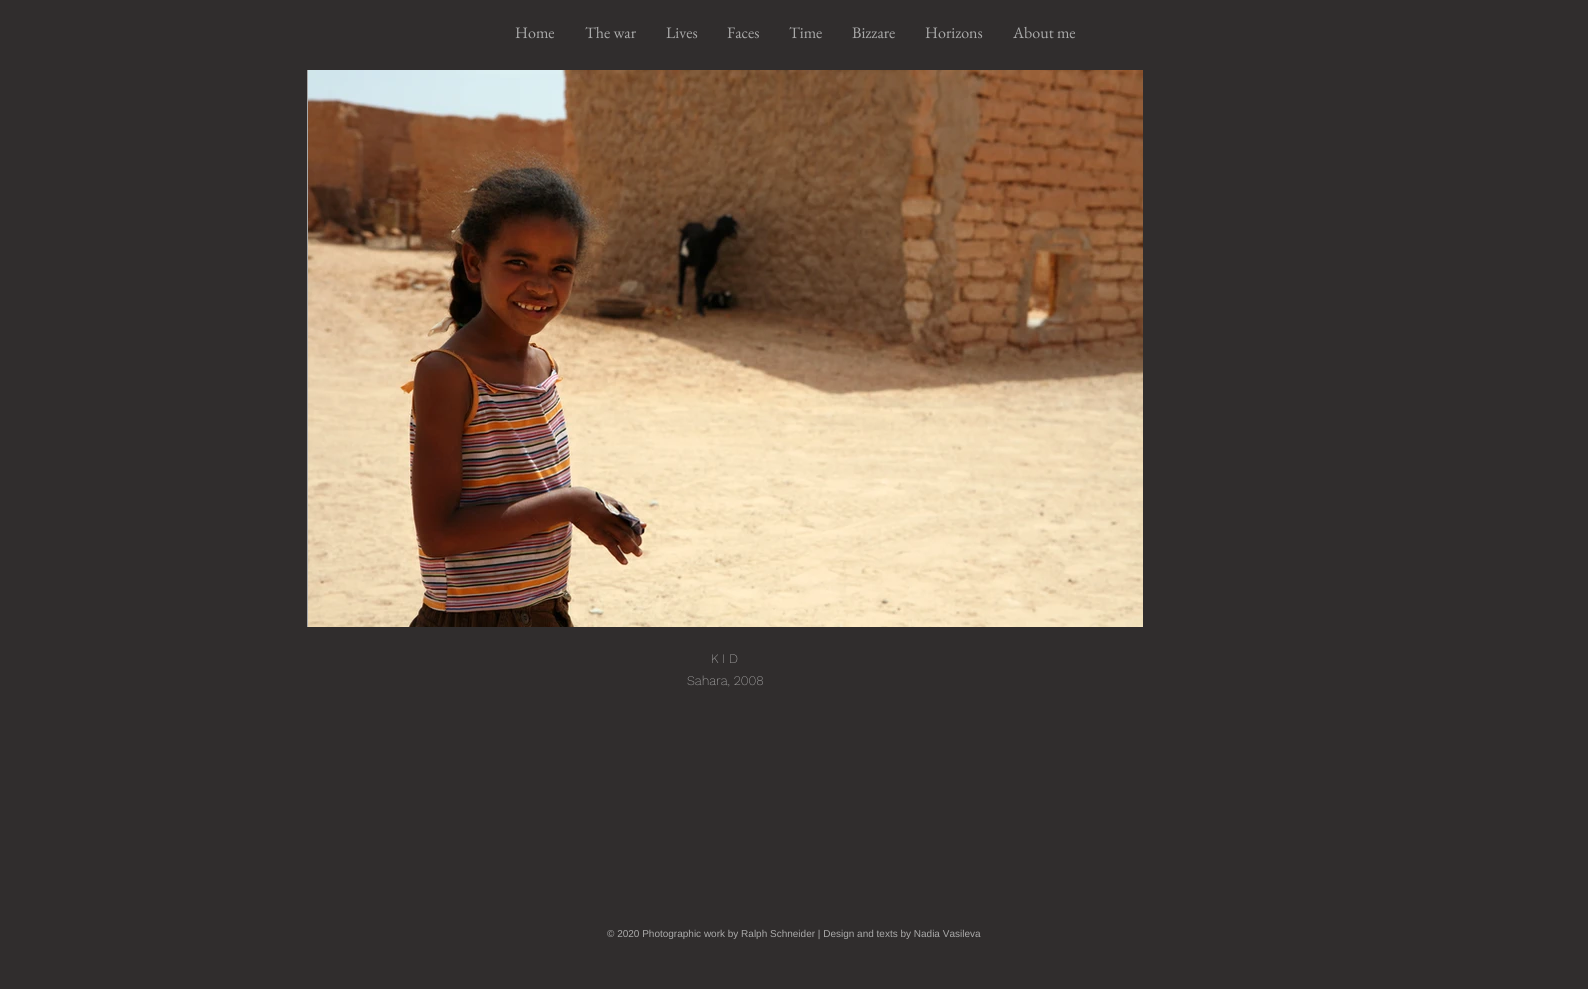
#include <cairo.h>
#include <math.h>
#include <stddef.h>

static cairo_t *ctx;

static void use_color(int r, int g, int b) {
    cairo_set_source_rgb(ctx, r / 255.0, g / 255.0, b / 255.0);
}

static void picture(const char *path, double x, double y, double w, double h) {
    cairo_surface_t *image = cairo_image_surface_create_from_png(path);
    cairo_save(ctx);
    cairo_set_source_surface(ctx, image, x, y);
    cairo_rectangle(ctx, x, y, w, h);
    cairo_fill(ctx);
    cairo_restore(ctx);
    cairo_surface_destroy(image);
}

int main(void) {
    cairo_surface_t *surface = cairo_image_surface_create(CAIRO_FORMAT_RGB24, 1588, 989);
    ctx = cairo_create(surface);
    cairo_font_options_t *options = cairo_font_options_create();
    cairo_font_options_set_hint_metrics(options, CAIRO_HINT_METRICS_OFF);
    cairo_font_options_set_hint_style(options, CAIRO_HINT_STYLE_NONE);
    cairo_set_font_options(ctx, options);
    cairo_set_miter_limit(ctx, 4);
    use_color(48, 45, 45);
    cairo_paint(ctx);
    cairo_select_font_face(ctx, "EB Garamond", CAIRO_FONT_SLANT_NORMAL, CAIRO_FONT_WEIGHT_NORMAL);
    cairo_set_font_size(ctx, 16);
    use_color(170, 170, 170);
    cairo_move_to(ctx, 515, 38);
    cairo_show_text(ctx, "Home");
    cairo_move_to(ctx, 585, 38);
    cairo_show_text(ctx, "The war");
    cairo_move_to(ctx, 666, 38);
    cairo_show_text(ctx, "Lives");
    cairo_move_to(ctx, 727, 38);
    cairo_show_text(ctx, "Faces");
    cairo_move_to(ctx, 789, 38);
    cairo_show_text(ctx, "Time");
    cairo_move_to(ctx, 852, 38);
    cairo_show_text(ctx, "Bizzare");
    cairo_move_to(ctx, 925, 38);
    cairo_show_text(ctx, "Horizons");
    cairo_move_to(ctx, 1013, 38);
    cairo_show_text(ctx, "About me");
    cairo_rectangle(ctx, 307, 70, 1, 557);
    cairo_fill(ctx);
    picture("img1.png", 308, 70, 835, 557);
    cairo_select_font_face(ctx, "Work Sans ExtraLight", CAIRO_FONT_SLANT_NORMAL, CAIRO_FONT_WEIGHT_NORMAL);
    cairo_set_font_size(ctx, 13);
    use_color(206, 206, 206);
    cairo_move_to(ctx, 711, 663);
    cairo_show_text(ctx, "K I D");
    cairo_move_to(ctx, 687, 685);
    cairo_show_text(ctx, "Sahara, 2008");
    cairo_select_font_face(ctx, "Liberation Sans", CAIRO_FONT_SLANT_NORMAL, CAIRO_FONT_WEIGHT_NORMAL);
    cairo_set_font_size(ctx, 10);
    use_color(170, 170, 170);
    cairo_move_to(ctx, 607, 937);
    cairo_show_text(ctx, "© 2020 Photographic work by Ralph Schneider | Design and texts by Nadia Vasileva");
    cairo_surface_write_to_png(surface, "result.png");
    cairo_font_options_destroy(options);
    cairo_destroy(ctx);
    cairo_surface_destroy(surface);
    return 0;
}
